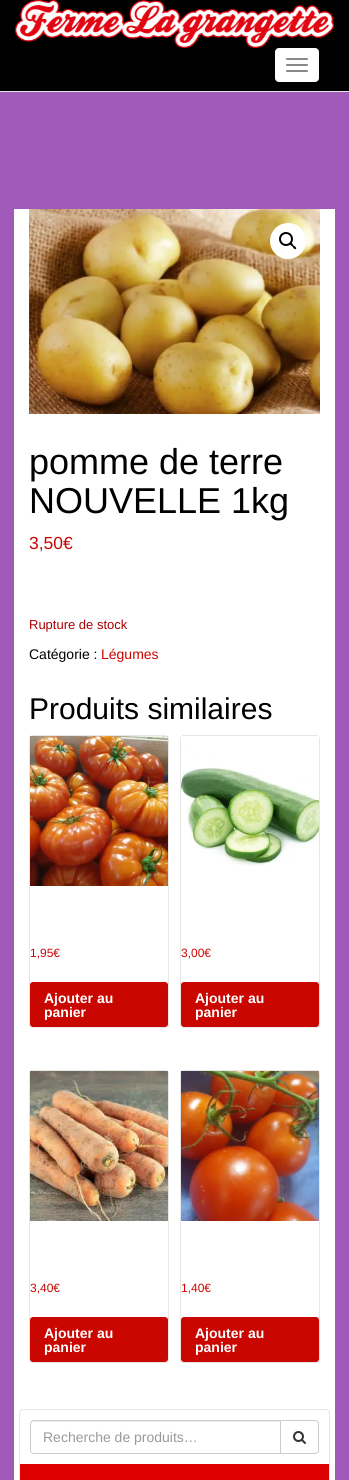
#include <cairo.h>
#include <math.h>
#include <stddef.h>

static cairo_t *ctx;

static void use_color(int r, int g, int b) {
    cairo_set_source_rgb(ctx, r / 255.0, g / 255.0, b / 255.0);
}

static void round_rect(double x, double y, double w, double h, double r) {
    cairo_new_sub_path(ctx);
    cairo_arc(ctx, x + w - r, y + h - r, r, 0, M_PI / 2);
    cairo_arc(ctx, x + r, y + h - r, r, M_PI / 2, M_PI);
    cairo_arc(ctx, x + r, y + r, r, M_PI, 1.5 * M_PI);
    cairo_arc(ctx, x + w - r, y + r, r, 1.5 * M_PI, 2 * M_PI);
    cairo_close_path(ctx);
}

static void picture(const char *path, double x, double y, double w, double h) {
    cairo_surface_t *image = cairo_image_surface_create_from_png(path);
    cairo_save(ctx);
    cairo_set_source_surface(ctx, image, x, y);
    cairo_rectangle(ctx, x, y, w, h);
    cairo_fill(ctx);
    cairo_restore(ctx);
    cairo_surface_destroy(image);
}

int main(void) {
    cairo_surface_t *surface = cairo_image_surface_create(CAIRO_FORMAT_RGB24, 349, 1480);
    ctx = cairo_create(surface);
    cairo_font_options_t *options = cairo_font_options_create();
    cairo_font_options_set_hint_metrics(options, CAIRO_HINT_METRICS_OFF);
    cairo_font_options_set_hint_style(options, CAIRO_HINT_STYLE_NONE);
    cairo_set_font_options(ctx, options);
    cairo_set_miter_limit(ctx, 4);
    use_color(160, 91, 186);
    cairo_paint(ctx);
    use_color(0, 0, 0);
    cairo_rectangle(ctx, 0, 0, 349, 91);
    cairo_fill(ctx);
    use_color(231, 231, 231);
    cairo_rectangle(ctx, 0, 91, 349, 1);
    cairo_fill(ctx);
    picture("img1.png", 15, 0, 319, 48);
    use_color(255, 255, 255);
    round_rect(275.5, 48.5, 43, 33, 3.5);
    cairo_fill_preserve(ctx);
    cairo_set_line_width(ctx, 1);
    cairo_stroke(ctx);
    use_color(136, 136, 136);
    round_rect(286, 58, 22, 2, 1);
    cairo_fill(ctx);
    round_rect(286, 64, 22, 2, 1);
    cairo_fill(ctx);
    round_rect(286, 70, 22, 2, 1);
    cairo_fill(ctx);
    use_color(255, 255, 255);
    cairo_rectangle(ctx, 14, 209, 321, 1271);
    cairo_fill(ctx);
    picture("img2.png", 29, 209, 291, 205);
    cairo_arc(ctx, 288, 241, 18, 0, 2 * M_PI);
    cairo_fill(ctx);
    cairo_arc(ctx, 286, 239, 6, 0, 2 * M_PI);
    use_color(0, 0, 0);
    cairo_set_line_width(ctx, 2);
    cairo_stroke(ctx);
    cairo_new_path(ctx);
    cairo_move_to(ctx, 290, 243);
    cairo_curve_to(ctx, 291.5, 242, 293, 244.5, 293.5, 245.5);
    cairo_curve_to(ctx, 294.5, 246, 297, 247.5, 296, 249);
    cairo_curve_to(ctx, 294.5, 250, 293, 247.5, 292.5, 246.5);
    cairo_curve_to(ctx, 291.5, 246, 289, 244.5, 290, 243);
    cairo_close_path(ctx);
    cairo_fill(ctx);
    cairo_select_font_face(ctx, "Liberation Sans", CAIRO_FONT_SLANT_NORMAL, CAIRO_FONT_WEIGHT_NORMAL);
    cairo_set_font_size(ctx, 36);
    cairo_move_to(ctx, 29, 474);
    cairo_show_text(ctx, "pomme de terre");
    cairo_move_to(ctx, 29, 513);
    cairo_show_text(ctx, "NOUVELLE 1kg");
    cairo_set_font_size(ctx, 17.5);
    use_color(201, 6, 0);
    cairo_move_to(ctx, 29, 549);
    cairo_show_text(ctx, "3,50€");
    cairo_set_font_size(ctx, 13);
    use_color(170, 0, 0);
    cairo_move_to(ctx, 29, 629);
    cairo_show_text(ctx, "Rupture de stock");
    cairo_set_font_size(ctx, 14);
    use_color(0, 0, 0);
    cairo_move_to(ctx, 29, 659);
    cairo_show_text(ctx, "Catégorie :");
    use_color(201, 6, 0);
    cairo_move_to(ctx, 101, 659);
    cairo_show_text(ctx, "Légumes");
    cairo_set_font_size(ctx, 30);
    use_color(0, 0, 0);
    cairo_move_to(ctx, 29, 719);
    cairo_show_text(ctx, "Produits similaires");
    round_rect(29.5, 735.5, 139, 292, 3.5);
    use_color(230, 230, 230);
    cairo_set_line_width(ctx, 1);
    cairo_stroke(ctx);
    picture("img3.png", 30, 736, 138, 150);
    cairo_set_font_size(ctx, 12);
    use_color(201, 6, 0);
    cairo_move_to(ctx, 30, 957);
    cairo_show_text(ctx, "1,95€");
    round_rect(30, 982, 138, 45, 3);
    cairo_fill(ctx);
    cairo_select_font_face(ctx, "Liberation Sans", CAIRO_FONT_SLANT_NORMAL, CAIRO_FONT_WEIGHT_BOLD);
    cairo_set_font_size(ctx, 14);
    use_color(255, 255, 255);
    cairo_move_to(ctx, 44, 1003);
    cairo_show_text(ctx, "Ajouter au");
    cairo_move_to(ctx, 44, 1017);
    cairo_show_text(ctx, "panier");
    round_rect(180.5, 735.5, 139, 292, 3.5);
    use_color(230, 230, 230);
    cairo_stroke(ctx);
    picture("img4.png", 181, 736, 138, 130);
    cairo_select_font_face(ctx, "Liberation Sans", CAIRO_FONT_SLANT_NORMAL, CAIRO_FONT_WEIGHT_NORMAL);
    cairo_set_font_size(ctx, 12);
    use_color(201, 6, 0);
    cairo_move_to(ctx, 181, 957);
    cairo_show_text(ctx, "3,00€");
    round_rect(181, 982, 138, 45, 3);
    cairo_fill(ctx);
    cairo_select_font_face(ctx, "Liberation Sans", CAIRO_FONT_SLANT_NORMAL, CAIRO_FONT_WEIGHT_BOLD);
    cairo_set_font_size(ctx, 14);
    use_color(255, 255, 255);
    cairo_move_to(ctx, 195, 1003);
    cairo_show_text(ctx, "Ajouter au");
    cairo_move_to(ctx, 195, 1017);
    cairo_show_text(ctx, "panier");
    round_rect(29.5, 1070.5, 139, 292, 3.5);
    use_color(230, 230, 230);
    cairo_stroke(ctx);
    picture("img5.png", 30, 1071, 138, 150);
    cairo_select_font_face(ctx, "Liberation Sans", CAIRO_FONT_SLANT_NORMAL, CAIRO_FONT_WEIGHT_NORMAL);
    cairo_set_font_size(ctx, 12);
    use_color(201, 6, 0);
    cairo_move_to(ctx, 30, 1292);
    cairo_show_text(ctx, "3,40€");
    round_rect(30, 1317, 138, 45, 3);
    cairo_fill(ctx);
    cairo_select_font_face(ctx, "Liberation Sans", CAIRO_FONT_SLANT_NORMAL, CAIRO_FONT_WEIGHT_BOLD);
    cairo_set_font_size(ctx, 14);
    use_color(255, 255, 255);
    cairo_move_to(ctx, 44, 1338);
    cairo_show_text(ctx, "Ajouter au");
    cairo_move_to(ctx, 44, 1352);
    cairo_show_text(ctx, "panier");
    round_rect(180.5, 1070.5, 139, 292, 3.5);
    use_color(230, 230, 230);
    cairo_stroke(ctx);
    picture("img6.png", 181, 1071, 138, 150);
    cairo_select_font_face(ctx, "Liberation Sans", CAIRO_FONT_SLANT_NORMAL, CAIRO_FONT_WEIGHT_NORMAL);
    cairo_set_font_size(ctx, 12);
    use_color(201, 6, 0);
    cairo_move_to(ctx, 181, 1292);
    cairo_show_text(ctx, "1,40€");
    round_rect(181, 1317, 138, 45, 3);
    cairo_fill(ctx);
    cairo_select_font_face(ctx, "Liberation Sans", CAIRO_FONT_SLANT_NORMAL, CAIRO_FONT_WEIGHT_BOLD);
    cairo_set_font_size(ctx, 14);
    use_color(255, 255, 255);
    cairo_move_to(ctx, 195, 1338);
    cairo_show_text(ctx, "Ajouter au");
    cairo_move_to(ctx, 195, 1352);
    cairo_show_text(ctx, "panier");
    round_rect(19.5, 1409.5, 310, 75, 3.5);
    use_color(230, 230, 230);
    cairo_stroke(ctx);
    cairo_new_path(ctx);
    cairo_move_to(ctx, 280.5, 1420.5);
    cairo_line_to(ctx, 315, 1420.5);
    cairo_curve_to(ctx, 317, 1420.5, 318.5, 1422, 318.5, 1424);
    cairo_line_to(ctx, 318.5, 1450);
    cairo_curve_to(ctx, 318.5, 1452, 317, 1453.5, 315, 1453.5);
    cairo_line_to(ctx, 280.5, 1453.5);
    cairo_close_path(ctx);
    use_color(204, 204, 204);
    cairo_stroke(ctx);
    use_color(255, 255, 255);
    cairo_new_path(ctx);
    cairo_move_to(ctx, 34, 1420);
    cairo_line_to(ctx, 281, 1420);
    cairo_line_to(ctx, 281, 1454);
    cairo_line_to(ctx, 34, 1454);
    cairo_curve_to(ctx, 32, 1454, 30, 1452, 30, 1450);
    cairo_line_to(ctx, 30, 1424);
    cairo_curve_to(ctx, 30, 1422, 32, 1420, 34, 1420);
    cairo_close_path(ctx);
    cairo_fill(ctx);
    use_color(236, 236, 236);
    cairo_new_path(ctx);
    cairo_move_to(ctx, 34, 1422);
    cairo_line_to(ctx, 280, 1422);
    cairo_line_to(ctx, 280, 1421);
    cairo_line_to(ctx, 34, 1421);
    cairo_curve_to(ctx, 32, 1421, 31, 1423, 31, 1425);
    cairo_curve_to(ctx, 31, 1423, 32, 1422, 34, 1422);
    cairo_close_path(ctx);
    cairo_fill(ctx);
    cairo_new_path(ctx);
    cairo_move_to(ctx, 34, 1420.5);
    cairo_line_to(ctx, 280.5, 1420.5);
    cairo_line_to(ctx, 280.5, 1453.5);
    cairo_line_to(ctx, 34, 1453.5);
    cairo_curve_to(ctx, 32, 1453.5, 30.5, 1452, 30.5, 1450);
    cairo_line_to(ctx, 30.5, 1424);
    cairo_curve_to(ctx, 30.5, 1422, 32, 1420.5, 34, 1420.5);
    cairo_close_path(ctx);
    use_color(204, 204, 204);
    cairo_stroke(ctx);
    cairo_select_font_face(ctx, "Liberation Sans", CAIRO_FONT_SLANT_NORMAL, CAIRO_FONT_WEIGHT_NORMAL);
    use_color(153, 153, 153);
    cairo_move_to(ctx, 43, 1442);
    cairo_show_text(ctx, "Recherche de produits…");
    picture("img7.png", 293, 1431, 13, 13);
    use_color(221, 0, 0);
    cairo_rectangle(ctx, 20, 1464, 309, 16);
    cairo_fill(ctx);
    cairo_surface_write_to_png(surface, "result.png");
    cairo_font_options_destroy(options);
    cairo_destroy(ctx);
    cairo_surface_destroy(surface);
    return 0;
}
